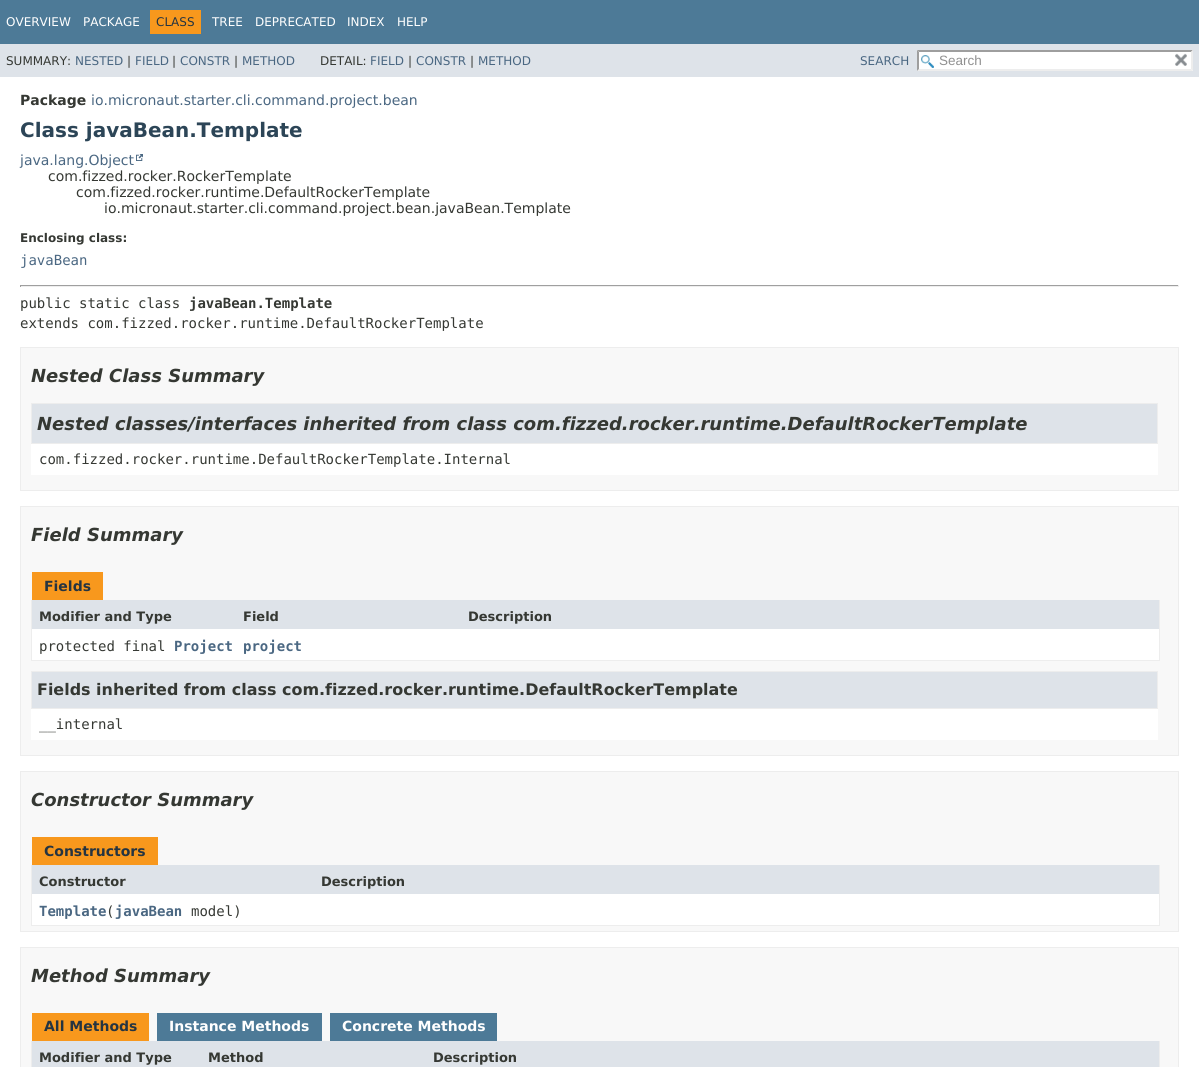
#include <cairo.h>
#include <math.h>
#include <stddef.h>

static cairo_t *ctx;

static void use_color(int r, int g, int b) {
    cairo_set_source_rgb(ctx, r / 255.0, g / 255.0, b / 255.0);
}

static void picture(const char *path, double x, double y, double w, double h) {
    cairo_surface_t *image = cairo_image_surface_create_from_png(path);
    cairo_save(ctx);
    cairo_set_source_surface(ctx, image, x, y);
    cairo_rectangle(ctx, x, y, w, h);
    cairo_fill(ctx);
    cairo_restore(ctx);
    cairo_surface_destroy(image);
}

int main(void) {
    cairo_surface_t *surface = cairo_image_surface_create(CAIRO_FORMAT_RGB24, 1199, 1067);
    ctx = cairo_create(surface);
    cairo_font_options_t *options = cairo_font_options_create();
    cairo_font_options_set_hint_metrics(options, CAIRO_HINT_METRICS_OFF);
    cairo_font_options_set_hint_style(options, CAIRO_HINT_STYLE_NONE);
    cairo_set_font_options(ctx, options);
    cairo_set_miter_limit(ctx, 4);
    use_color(255, 255, 255);
    cairo_paint(ctx);
    use_color(77, 122, 151);
    cairo_rectangle(ctx, 0, 0, 1199, 44);
    cairo_fill(ctx);
    cairo_select_font_face(ctx, "DejaVu Sans", CAIRO_FONT_SLANT_NORMAL, CAIRO_FONT_WEIGHT_NORMAL);
    cairo_set_font_size(ctx, 12);
    use_color(255, 255, 255);
    cairo_move_to(ctx, 6, 26);
    cairo_show_text(ctx, "OVERVIEW");
    cairo_move_to(ctx, 83, 26);
    cairo_show_text(ctx, "PACKAGE");
    use_color(248, 152, 29);
    cairo_rectangle(ctx, 150, 10, 51, 24);
    cairo_fill(ctx);
    use_color(37, 52, 65);
    cairo_move_to(ctx, 156, 26);
    cairo_show_text(ctx, "CLASS");
    use_color(255, 255, 255);
    cairo_move_to(ctx, 212, 26);
    cairo_show_text(ctx, "TREE");
    cairo_move_to(ctx, 255, 26);
    cairo_show_text(ctx, "DEPRECATED");
    cairo_move_to(ctx, 347, 26);
    cairo_show_text(ctx, "INDEX");
    cairo_move_to(ctx, 397, 26);
    cairo_show_text(ctx, "HELP");
    use_color(222, 227, 233);
    cairo_rectangle(ctx, 0, 44, 1199, 33);
    cairo_fill(ctx);
    use_color(53, 56, 51);
    cairo_move_to(ctx, 6, 65);
    cairo_show_text(ctx, "SUMMARY:");
    use_color(74, 103, 130);
    cairo_move_to(ctx, 75, 65);
    cairo_show_text(ctx, "NESTED");
    use_color(53, 56, 51);
    cairo_move_to(ctx, 127, 65);
    cairo_show_text(ctx, "|");
    use_color(74, 103, 130);
    cairo_move_to(ctx, 135, 65);
    cairo_show_text(ctx, "FIELD");
    use_color(53, 56, 51);
    cairo_move_to(ctx, 172, 65);
    cairo_show_text(ctx, "|");
    use_color(74, 103, 130);
    cairo_move_to(ctx, 180, 65);
    cairo_show_text(ctx, "CONSTR");
    use_color(53, 56, 51);
    cairo_move_to(ctx, 234, 65);
    cairo_show_text(ctx, "|");
    use_color(74, 103, 130);
    cairo_move_to(ctx, 242, 65);
    cairo_show_text(ctx, "METHOD");
    use_color(53, 56, 51);
    cairo_move_to(ctx, 320, 65);
    cairo_show_text(ctx, "DETAIL:");
    use_color(74, 103, 130);
    cairo_move_to(ctx, 370, 65);
    cairo_show_text(ctx, "FIELD");
    use_color(53, 56, 51);
    cairo_move_to(ctx, 408, 65);
    cairo_show_text(ctx, "|");
    use_color(74, 103, 130);
    cairo_move_to(ctx, 416, 65);
    cairo_show_text(ctx, "CONSTR");
    use_color(53, 56, 51);
    cairo_move_to(ctx, 470, 65);
    cairo_show_text(ctx, "|");
    use_color(74, 103, 130);
    cairo_move_to(ctx, 478, 65);
    cairo_show_text(ctx, "METHOD");
    cairo_move_to(ctx, 860, 65);
    cairo_show_text(ctx, "SEARCH");
    use_color(255, 255, 255);
    cairo_rectangle(ctx, 917, 50, 276, 21);
    cairo_fill(ctx);
    picture("img1.png", 921, 55, 13, 13);
    use_color(158, 158, 158);
    cairo_new_path(ctx);
    cairo_move_to(ctx, 917, 50);
    cairo_line_to(ctx, 1193, 50);
    cairo_line_to(ctx, 1191, 52);
    cairo_line_to(ctx, 919, 52);
    cairo_close_path(ctx);
    cairo_fill(ctx);
    use_color(237, 237, 237);
    cairo_new_path(ctx);
    cairo_move_to(ctx, 1193, 50);
    cairo_line_to(ctx, 1193, 71);
    cairo_line_to(ctx, 1191, 69);
    cairo_line_to(ctx, 1191, 52);
    cairo_close_path(ctx);
    cairo_fill(ctx);
    cairo_new_path(ctx);
    cairo_move_to(ctx, 1193, 71);
    cairo_line_to(ctx, 917, 71);
    cairo_line_to(ctx, 919, 69);
    cairo_line_to(ctx, 1191, 69);
    cairo_close_path(ctx);
    cairo_fill(ctx);
    use_color(158, 158, 158);
    cairo_new_path(ctx);
    cairo_move_to(ctx, 917, 71);
    cairo_line_to(ctx, 917, 50);
    cairo_line_to(ctx, 919, 52);
    cairo_line_to(ctx, 919, 69);
    cairo_close_path(ctx);
    cairo_fill(ctx);
    cairo_select_font_face(ctx, "Liberation Sans", CAIRO_FONT_SLANT_NORMAL, CAIRO_FONT_WEIGHT_NORMAL);
    cairo_set_font_size(ctx, 13.5);
    use_color(144, 144, 144);
    cairo_move_to(ctx, 939, 65);
    cairo_show_text(ctx, "Search");
    picture("img2.png", 1175, 53, 12, 13);
    cairo_select_font_face(ctx, "DejaVu Sans", CAIRO_FONT_SLANT_NORMAL, CAIRO_FONT_WEIGHT_BOLD);
    cairo_set_font_size(ctx, 14);
    use_color(53, 56, 51);
    cairo_move_to(ctx, 20, 105);
    cairo_show_text(ctx, "Package");
    cairo_select_font_face(ctx, "DejaVu Sans", CAIRO_FONT_SLANT_NORMAL, CAIRO_FONT_WEIGHT_NORMAL);
    use_color(74, 103, 130);
    cairo_move_to(ctx, 91, 105);
    cairo_show_text(ctx, "io.micronaut.starter.cli.command.project.bean");
    cairo_select_font_face(ctx, "DejaVu Sans", CAIRO_FONT_SLANT_NORMAL, CAIRO_FONT_WEIGHT_BOLD);
    cairo_set_font_size(ctx, 20);
    use_color(44, 69, 87);
    cairo_move_to(ctx, 20, 137);
    cairo_show_text(ctx, "Class javaBean.Template");
    cairo_select_font_face(ctx, "DejaVu Sans", CAIRO_FONT_SLANT_NORMAL, CAIRO_FONT_WEIGHT_NORMAL);
    cairo_set_font_size(ctx, 14);
    use_color(74, 103, 130);
    cairo_move_to(ctx, 20, 165);
    cairo_show_text(ctx, "java.lang.Object");
    picture("img3.png", 136, 154, 7, 7);
    use_color(53, 56, 51);
    cairo_move_to(ctx, 48, 181);
    cairo_show_text(ctx, "com.fizzed.rocker.RockerTemplate");
    cairo_move_to(ctx, 76, 197);
    cairo_show_text(ctx, "com.fizzed.rocker.runtime.DefaultRockerTemplate");
    cairo_move_to(ctx, 104, 213);
    cairo_show_text(ctx, "io.micronaut.starter.cli.command.project.bean.javaBean.Template");
    cairo_select_font_face(ctx, "DejaVu Sans", CAIRO_FONT_SLANT_NORMAL, CAIRO_FONT_WEIGHT_BOLD);
    cairo_set_font_size(ctx, 12);
    cairo_move_to(ctx, 20, 242);
    cairo_show_text(ctx, "Enclosing class:");
    cairo_select_font_face(ctx, "DejaVu Sans Mono", CAIRO_FONT_SLANT_NORMAL, CAIRO_FONT_WEIGHT_NORMAL);
    cairo_set_font_size(ctx, 14);
    use_color(74, 103, 130);
    cairo_move_to(ctx, 20, 265);
    cairo_show_text(ctx, "javaBean");
    use_color(159, 159, 159);
    cairo_rectangle(ctx, 20, 285, 1159, 1);
    cairo_fill(ctx);
    use_color(238, 238, 238);
    cairo_rectangle(ctx, 1178, 285, 1, 2);
    cairo_fill(ctx);
    cairo_rectangle(ctx, 20, 286, 1159, 1);
    cairo_fill(ctx);
    use_color(159, 159, 159);
    cairo_rectangle(ctx, 20, 285, 1, 2);
    cairo_fill(ctx);
    use_color(53, 56, 51);
    cairo_move_to(ctx, 20, 308);
    cairo_show_text(ctx, "public static class");
    cairo_select_font_face(ctx, "DejaVu Sans Mono", CAIRO_FONT_SLANT_NORMAL, CAIRO_FONT_WEIGHT_BOLD);
    cairo_move_to(ctx, 189, 308);
    cairo_show_text(ctx, "javaBean.Template");
    cairo_select_font_face(ctx, "DejaVu Sans Mono", CAIRO_FONT_SLANT_NORMAL, CAIRO_FONT_WEIGHT_NORMAL);
    cairo_move_to(ctx, 20, 328);
    cairo_show_text(ctx, "extends com.fizzed.rocker.runtime.DefaultRockerTemplate");
    use_color(248, 248, 248);
    cairo_rectangle(ctx, 20.5, 347.5, 1158, 143);
    cairo_fill_preserve(ctx);
    use_color(237, 237, 237);
    cairo_set_line_width(ctx, 1);
    cairo_stroke(ctx);
    cairo_select_font_face(ctx, "DejaVu Sans", CAIRO_FONT_SLANT_ITALIC, CAIRO_FONT_WEIGHT_BOLD);
    cairo_set_font_size(ctx, 18);
    use_color(53, 56, 51);
    cairo_move_to(ctx, 31, 382);
    cairo_show_text(ctx, "Nested Class Summary");
    use_color(255, 255, 255);
    cairo_rectangle(ctx, 31, 444, 1127, 31);
    cairo_fill(ctx);
    use_color(222, 227, 233);
    cairo_rectangle(ctx, 31.5, 403.5, 1126, 40);
    cairo_fill_preserve(ctx);
    use_color(237, 237, 237);
    cairo_stroke(ctx);
    use_color(53, 56, 51);
    cairo_move_to(ctx, 37, 430);
    cairo_show_text(ctx, "Nested classes/interfaces inherited from class com.fizzed.rocker.runtime.DefaultRockerTemplate");
    cairo_select_font_face(ctx, "DejaVu Sans Mono", CAIRO_FONT_SLANT_NORMAL, CAIRO_FONT_WEIGHT_NORMAL);
    cairo_set_font_size(ctx, 14);
    cairo_move_to(ctx, 39, 464);
    cairo_show_text(ctx, "com.fizzed.rocker.runtime.DefaultRockerTemplate.Internal");
    use_color(248, 248, 248);
    cairo_rectangle(ctx, 20.5, 506.5, 1158, 249);
    cairo_fill_preserve(ctx);
    use_color(237, 237, 237);
    cairo_stroke(ctx);
    cairo_select_font_face(ctx, "DejaVu Sans", CAIRO_FONT_SLANT_ITALIC, CAIRO_FONT_WEIGHT_BOLD);
    cairo_set_font_size(ctx, 18);
    use_color(53, 56, 51);
    cairo_move_to(ctx, 31, 541);
    cairo_show_text(ctx, "Field Summary");
    use_color(248, 152, 29);
    cairo_rectangle(ctx, 32, 572, 71, 28);
    cairo_fill(ctx);
    cairo_select_font_face(ctx, "DejaVu Sans", CAIRO_FONT_SLANT_NORMAL, CAIRO_FONT_WEIGHT_BOLD);
    cairo_set_font_size(ctx, 14);
    use_color(37, 52, 65);
    cairo_move_to(ctx, 44, 591);
    cairo_show_text(ctx, "Fields");
    use_color(237, 237, 237);
    cairo_rectangle(ctx, 1159, 600, 1, 61);
    cairo_fill(ctx);
    cairo_rectangle(ctx, 31, 660, 1129, 1);
    cairo_fill(ctx);
    cairo_rectangle(ctx, 31, 600, 1, 61);
    cairo_fill(ctx);
    use_color(222, 227, 233);
    cairo_rectangle(ctx, 32, 600, 1127, 29);
    cairo_fill(ctx);
    cairo_set_font_size(ctx, 13);
    use_color(53, 56, 51);
    cairo_move_to(ctx, 39, 621);
    cairo_show_text(ctx, "Modifier and Type");
    cairo_move_to(ctx, 243, 621);
    cairo_show_text(ctx, "Field");
    cairo_move_to(ctx, 468, 621);
    cairo_show_text(ctx, "Description");
    use_color(255, 255, 255);
    cairo_rectangle(ctx, 32, 629, 1127, 31);
    cairo_fill(ctx);
    cairo_select_font_face(ctx, "DejaVu Sans Mono", CAIRO_FONT_SLANT_NORMAL, CAIRO_FONT_WEIGHT_NORMAL);
    cairo_set_font_size(ctx, 14);
    use_color(53, 56, 51);
    cairo_move_to(ctx, 39, 651);
    cairo_show_text(ctx, "protected final");
    cairo_select_font_face(ctx, "DejaVu Sans Mono", CAIRO_FONT_SLANT_NORMAL, CAIRO_FONT_WEIGHT_BOLD);
    use_color(74, 103, 130);
    cairo_move_to(ctx, 174, 651);
    cairo_show_text(ctx, "Project");
    cairo_move_to(ctx, 243, 651);
    cairo_show_text(ctx, "project");
    use_color(255, 255, 255);
    cairo_rectangle(ctx, 31, 709, 1127, 31);
    cairo_fill(ctx);
    use_color(222, 227, 233);
    cairo_rectangle(ctx, 31.5, 671.5, 1126, 37);
    cairo_fill_preserve(ctx);
    use_color(237, 237, 237);
    cairo_stroke(ctx);
    cairo_select_font_face(ctx, "DejaVu Sans", CAIRO_FONT_SLANT_NORMAL, CAIRO_FONT_WEIGHT_BOLD);
    cairo_set_font_size(ctx, 15.95);
    use_color(53, 56, 51);
    cairo_move_to(ctx, 37, 695);
    cairo_show_text(ctx, "Fields inherited from class com.fizzed.rocker.runtime.DefaultRockerTemplate");
    cairo_select_font_face(ctx, "DejaVu Sans Mono", CAIRO_FONT_SLANT_NORMAL, CAIRO_FONT_WEIGHT_NORMAL);
    cairo_set_font_size(ctx, 14);
    cairo_move_to(ctx, 39, 729);
    cairo_show_text(ctx, "__internal");
    use_color(248, 248, 248);
    cairo_rectangle(ctx, 20.5, 771.5, 1158, 160);
    cairo_fill_preserve(ctx);
    use_color(237, 237, 237);
    cairo_stroke(ctx);
    cairo_select_font_face(ctx, "DejaVu Sans", CAIRO_FONT_SLANT_ITALIC, CAIRO_FONT_WEIGHT_BOLD);
    cairo_set_font_size(ctx, 18);
    use_color(53, 56, 51);
    cairo_move_to(ctx, 31, 806);
    cairo_show_text(ctx, "Constructor Summary");
    use_color(248, 152, 29);
    cairo_rectangle(ctx, 32, 837, 126, 28);
    cairo_fill(ctx);
    cairo_select_font_face(ctx, "DejaVu Sans", CAIRO_FONT_SLANT_NORMAL, CAIRO_FONT_WEIGHT_BOLD);
    cairo_set_font_size(ctx, 14);
    use_color(37, 52, 65);
    cairo_move_to(ctx, 44, 856);
    cairo_show_text(ctx, "Constructors");
    use_color(237, 237, 237);
    cairo_rectangle(ctx, 1159, 865, 1, 61);
    cairo_fill(ctx);
    cairo_rectangle(ctx, 31, 925, 1129, 1);
    cairo_fill(ctx);
    cairo_rectangle(ctx, 31, 865, 1, 61);
    cairo_fill(ctx);
    use_color(222, 227, 233);
    cairo_rectangle(ctx, 32, 865, 1127, 29);
    cairo_fill(ctx);
    cairo_set_font_size(ctx, 13);
    use_color(53, 56, 51);
    cairo_move_to(ctx, 39, 886);
    cairo_show_text(ctx, "Constructor");
    cairo_move_to(ctx, 321, 886);
    cairo_show_text(ctx, "Description");
    use_color(255, 255, 255);
    cairo_rectangle(ctx, 32, 894, 1127, 31);
    cairo_fill(ctx);
    cairo_select_font_face(ctx, "DejaVu Sans Mono", CAIRO_FONT_SLANT_NORMAL, CAIRO_FONT_WEIGHT_BOLD);
    cairo_set_font_size(ctx, 14);
    use_color(74, 103, 130);
    cairo_move_to(ctx, 39, 916);
    cairo_show_text(ctx, "Template javaBean");
    cairo_select_font_face(ctx, "DejaVu Sans Mono", CAIRO_FONT_SLANT_NORMAL, CAIRO_FONT_WEIGHT_NORMAL);
    use_color(53, 56, 51);
    cairo_move_to(ctx, 106, 916);
    cairo_show_text(ctx, "(");
    cairo_move_to(ctx, 191, 916);
    cairo_show_text(ctx, "model)");
    use_color(248, 248, 248);
    cairo_rectangle(ctx, 20.5, 947.5, 1158, 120);
    cairo_fill_preserve(ctx);
    use_color(237, 237, 237);
    cairo_stroke(ctx);
    cairo_select_font_face(ctx, "DejaVu Sans", CAIRO_FONT_SLANT_ITALIC, CAIRO_FONT_WEIGHT_BOLD);
    cairo_set_font_size(ctx, 18);
    use_color(53, 56, 51);
    cairo_move_to(ctx, 31, 982);
    cairo_show_text(ctx, "Method Summary");
    use_color(248, 152, 29);
    cairo_rectangle(ctx, 32, 1013, 117, 28);
    cairo_fill(ctx);
    cairo_select_font_face(ctx, "DejaVu Sans", CAIRO_FONT_SLANT_NORMAL, CAIRO_FONT_WEIGHT_BOLD);
    cairo_set_font_size(ctx, 14);
    use_color(37, 52, 65);
    cairo_move_to(ctx, 44, 1031);
    cairo_show_text(ctx, "All Methods");
    use_color(77, 122, 151);
    cairo_rectangle(ctx, 157, 1013, 165, 28);
    cairo_fill(ctx);
    use_color(255, 255, 255);
    cairo_move_to(ctx, 169, 1031);
    cairo_show_text(ctx, "Instance Methods");
    use_color(77, 122, 151);
    cairo_rectangle(ctx, 330, 1013, 167, 28);
    cairo_fill(ctx);
    use_color(255, 255, 255);
    cairo_move_to(ctx, 342, 1031);
    cairo_show_text(ctx, "Concrete Methods");
    use_color(237, 237, 237);
    cairo_rectangle(ctx, 1159, 1041, 1, 26);
    cairo_fill(ctx);
    cairo_rectangle(ctx, 31, 1041, 1, 26);
    cairo_fill(ctx);
    use_color(222, 227, 233);
    cairo_rectangle(ctx, 32, 1041, 1127, 26);
    cairo_fill(ctx);
    cairo_set_font_size(ctx, 13);
    use_color(53, 56, 51);
    cairo_move_to(ctx, 39, 1062);
    cairo_show_text(ctx, "Modifier and Type");
    cairo_move_to(ctx, 208, 1062);
    cairo_show_text(ctx, "Method");
    cairo_move_to(ctx, 433, 1062);
    cairo_show_text(ctx, "Description");
    cairo_surface_write_to_png(surface, "result.png");
    cairo_font_options_destroy(options);
    cairo_destroy(ctx);
    cairo_surface_destroy(surface);
    return 0;
}
